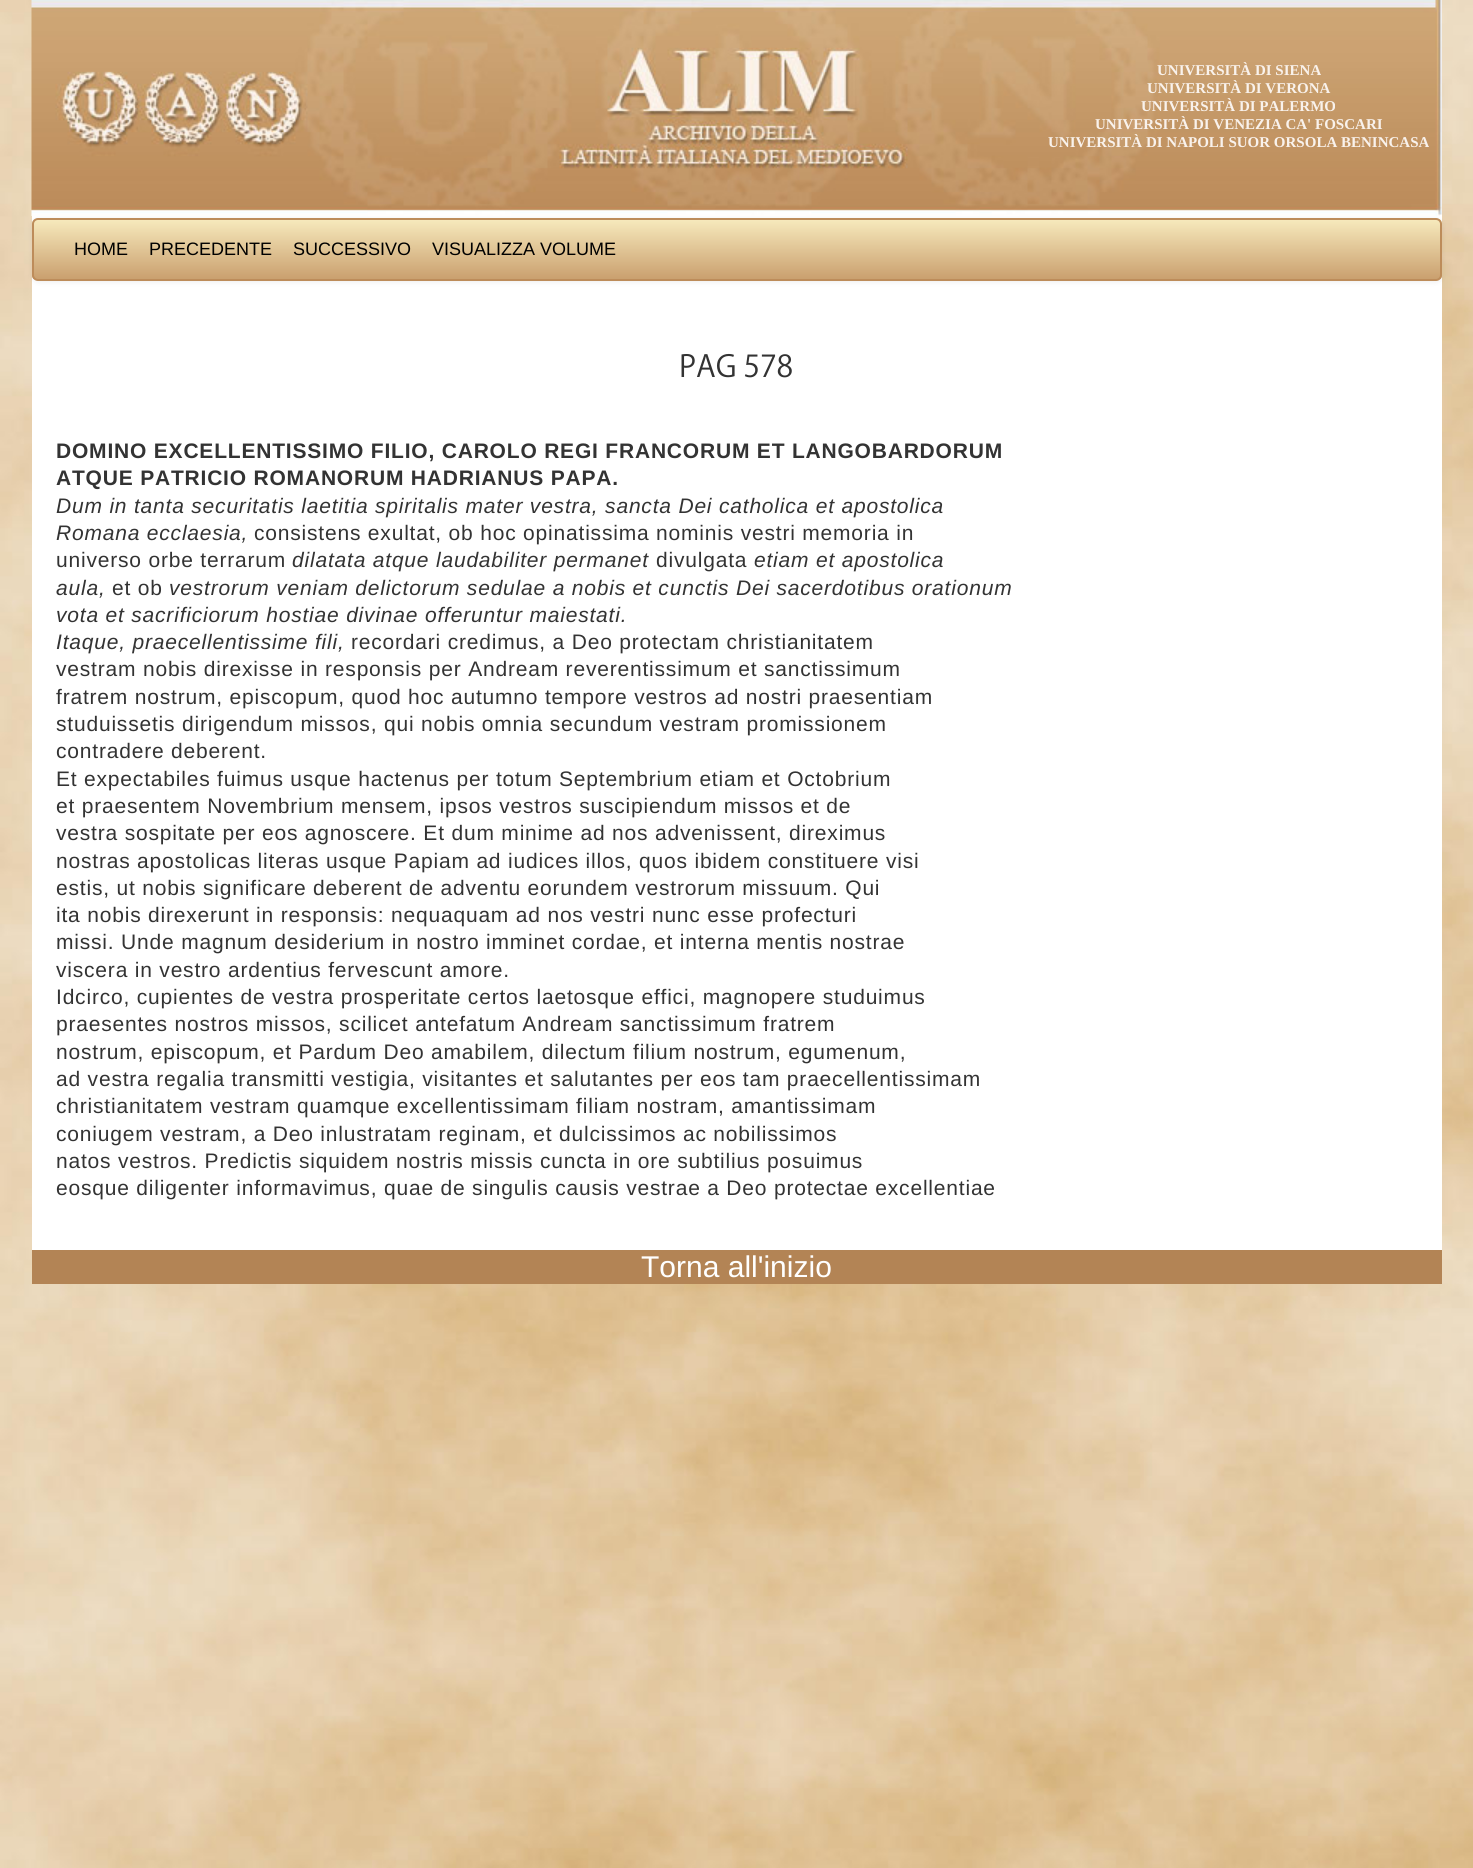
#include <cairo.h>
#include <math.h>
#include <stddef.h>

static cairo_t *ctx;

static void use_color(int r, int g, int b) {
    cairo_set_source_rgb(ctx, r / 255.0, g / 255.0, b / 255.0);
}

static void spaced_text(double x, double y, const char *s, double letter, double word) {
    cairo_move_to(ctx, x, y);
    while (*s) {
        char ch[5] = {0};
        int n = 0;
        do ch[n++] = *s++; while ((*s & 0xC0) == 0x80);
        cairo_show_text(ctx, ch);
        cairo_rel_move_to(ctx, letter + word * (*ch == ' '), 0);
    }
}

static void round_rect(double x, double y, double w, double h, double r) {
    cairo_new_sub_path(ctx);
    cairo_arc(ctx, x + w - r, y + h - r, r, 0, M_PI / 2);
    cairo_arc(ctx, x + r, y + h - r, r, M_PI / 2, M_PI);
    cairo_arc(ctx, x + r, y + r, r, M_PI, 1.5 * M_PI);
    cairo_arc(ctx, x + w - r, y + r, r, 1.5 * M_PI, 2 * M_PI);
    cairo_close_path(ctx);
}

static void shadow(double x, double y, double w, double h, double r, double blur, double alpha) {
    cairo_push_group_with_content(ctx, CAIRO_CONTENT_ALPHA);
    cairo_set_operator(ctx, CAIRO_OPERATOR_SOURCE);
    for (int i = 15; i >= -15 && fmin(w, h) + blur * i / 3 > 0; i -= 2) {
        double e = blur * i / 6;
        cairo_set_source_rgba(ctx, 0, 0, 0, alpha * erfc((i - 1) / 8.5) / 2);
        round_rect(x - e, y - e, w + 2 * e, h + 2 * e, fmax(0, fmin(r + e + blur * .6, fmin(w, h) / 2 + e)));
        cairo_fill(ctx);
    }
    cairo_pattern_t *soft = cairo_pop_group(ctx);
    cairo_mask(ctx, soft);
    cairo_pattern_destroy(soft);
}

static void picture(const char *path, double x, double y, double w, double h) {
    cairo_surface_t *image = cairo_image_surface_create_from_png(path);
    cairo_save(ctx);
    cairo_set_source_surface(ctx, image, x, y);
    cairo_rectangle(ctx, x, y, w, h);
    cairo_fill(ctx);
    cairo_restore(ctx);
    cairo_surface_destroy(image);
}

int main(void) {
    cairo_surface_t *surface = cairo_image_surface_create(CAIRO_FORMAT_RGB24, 1473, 1868);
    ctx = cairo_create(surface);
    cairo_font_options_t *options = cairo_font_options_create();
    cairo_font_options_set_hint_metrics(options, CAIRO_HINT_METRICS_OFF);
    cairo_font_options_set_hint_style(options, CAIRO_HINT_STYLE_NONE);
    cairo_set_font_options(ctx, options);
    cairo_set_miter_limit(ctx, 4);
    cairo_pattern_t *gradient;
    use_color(255, 255, 255);
    cairo_paint(ctx);
    picture("img1.png", 0, 0, 1473, 1868);
    use_color(255, 255, 255);
    cairo_rectangle(ctx, 32, 0, 1410, 1250);
    cairo_fill(ctx);
    use_color(0, 0, 0);
    shadow(32, 219, 1410, 63, 6, 3, 0.07);
    picture("img2.png", 31, 0, 1411, 216);
    cairo_select_font_face(ctx, "Liberation Serif", CAIRO_FONT_SLANT_NORMAL, CAIRO_FONT_WEIGHT_BOLD);
    cairo_set_font_size(ctx, 15);
    use_color(249, 242, 236);
    cairo_move_to(ctx, 1157, 75);
    cairo_show_text(ctx, "UNIVERSITÀ DI SIENA");
    cairo_move_to(ctx, 1147, 93);
    cairo_show_text(ctx, "UNIVERSITÀ DI VERONA");
    cairo_move_to(ctx, 1141, 111);
    cairo_show_text(ctx, "UNIVERSITÀ DI PALERMO");
    cairo_move_to(ctx, 1095, 129);
    cairo_show_text(ctx, "UNIVERSITÀ DI VENEZIA CA' FOSCARI");
    cairo_move_to(ctx, 1048, 147);
    cairo_show_text(ctx, "UNIVERSITÀ DI NAPOLI SUOR ORSOLA BENINCASA");
    cairo_save(ctx);
    round_rect(32, 218, 1410, 63, 6);
    cairo_clip(ctx);
    gradient = cairo_pattern_create_linear(737, 219, 737, 279);
    cairo_pattern_add_color_stop_rgba(gradient, 0, 0.969, 0.918, 0.741, 1);
    cairo_pattern_add_color_stop_rgba(gradient, 1, 0.792, 0.627, 0.435, 1);
    cairo_set_source(ctx, gradient);
    cairo_pattern_destroy(gradient);
    cairo_rectangle(ctx, 32, 219, 1410, 60);
    cairo_fill(ctx);
    cairo_restore(ctx);
    round_rect(33, 219, 1408, 61, 5);
    use_color(189, 140, 90);
    cairo_stroke(ctx);
    cairo_select_font_face(ctx, "Liberation Sans", CAIRO_FONT_SLANT_NORMAL, CAIRO_FONT_WEIGHT_NORMAL);
    cairo_set_font_size(ctx, 18);
    use_color(0, 0, 0);
    cairo_move_to(ctx, 74, 255);
    cairo_show_text(ctx, "HOME");
    cairo_move_to(ctx, 149, 255);
    cairo_show_text(ctx, "PRECEDENTE");
    cairo_move_to(ctx, 293, 255);
    cairo_show_text(ctx, "SUCCESSIVO");
    cairo_move_to(ctx, 432, 255);
    cairo_show_text(ctx, "VISUALIZZA VOLUME");
    cairo_select_font_face(ctx, "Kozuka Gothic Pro", CAIRO_FONT_SLANT_NORMAL, CAIRO_FONT_WEIGHT_NORMAL);
    cairo_set_font_size(ctx, 30);
    use_color(51, 51, 51);
    cairo_move_to(ctx, 679, 377);
    cairo_show_text(ctx, "PAG 578");
    cairo_select_font_face(ctx, "Liberation Sans", CAIRO_FONT_SLANT_NORMAL, CAIRO_FONT_WEIGHT_BOLD);
    cairo_set_font_size(ctx, 21);
    spaced_text(56, 458, "DOMINO EXCELLENTISSIMO FILIO, CAROLO REGI FRANCORUM ET LANGOBARDORUM", 0.8, 0);
    spaced_text(56, 485, "ATQUE PATRICIO ROMANORUM HADRIANUS PAPA.", 0.8, 0);
    cairo_select_font_face(ctx, "Liberation Sans", CAIRO_FONT_SLANT_ITALIC, CAIRO_FONT_WEIGHT_NORMAL);
    spaced_text(56, 513, "Dum in tanta securitatis laetitia spiritalis mater vestra, sancta Dei catholica et apostolica", 0.8, 0);
    spaced_text(56, 540, "Romana ecclaesia,", 0.8, 0);
    cairo_select_font_face(ctx, "Liberation Sans", CAIRO_FONT_SLANT_NORMAL, CAIRO_FONT_WEIGHT_NORMAL);
    spaced_text(254, 540, "consistens exultat, ob hoc opinatissima nominis vestri memoria in", 0.8, 0);
    spaced_text(56, 567, "universo orbe terrarum", 0.8, 0);
    cairo_select_font_face(ctx, "Liberation Sans", CAIRO_FONT_SLANT_ITALIC, CAIRO_FONT_WEIGHT_NORMAL);
    spaced_text(292, 567, "dilatata atque laudabiliter permanet", 0.8, 0);
    cairo_select_font_face(ctx, "Liberation Sans", CAIRO_FONT_SLANT_NORMAL, CAIRO_FONT_WEIGHT_NORMAL);
    spaced_text(656, 567, "divulgata", 0.8, 0);
    cairo_select_font_face(ctx, "Liberation Sans", CAIRO_FONT_SLANT_ITALIC, CAIRO_FONT_WEIGHT_NORMAL);
    spaced_text(754, 567, "etiam et apostolica", 0.8, 0);
    spaced_text(56, 595, "aula,", 0.8, 0);
    cairo_select_font_face(ctx, "Liberation Sans", CAIRO_FONT_SLANT_NORMAL, CAIRO_FONT_WEIGHT_NORMAL);
    spaced_text(112, 595, "et ob", 0.8, 0);
    cairo_select_font_face(ctx, "Liberation Sans", CAIRO_FONT_SLANT_ITALIC, CAIRO_FONT_WEIGHT_NORMAL);
    spaced_text(169, 595, "vestrorum veniam delictorum sedulae a nobis et cunctis Dei sacerdotibus orationum", 0.8, 0);
    spaced_text(56, 622, "vota et sacrificiorum hostiae divinae offeruntur maiestati.", 0.8, 0);
    spaced_text(56, 649, "Itaque, praecellentissime fili,", 0.8, 0);
    cairo_select_font_face(ctx, "Liberation Sans", CAIRO_FONT_SLANT_NORMAL, CAIRO_FONT_WEIGHT_NORMAL);
    spaced_text(351, 649, "recordari credimus, a Deo protectam christianitatem", 0.8, 0);
    spaced_text(56, 676, "vestram nobis direxisse in responsis per Andream reverentissimum et sanctissimum", 0.8, 0);
    spaced_text(56, 704, "fratrem nostrum, episcopum, quod hoc autumno tempore vestros ad nostri praesentiam", 0.8, 0);
    spaced_text(56, 731, "studuissetis dirigendum missos, qui nobis omnia secundum vestram promissionem", 0.8, 0);
    spaced_text(56, 758, "contradere deberent.", 0.8, 0);
    spaced_text(56, 786, "Et expectabiles fuimus usque hactenus per totum Septembrium etiam et Octobrium", 0.8, 0);
    spaced_text(56, 813, "et praesentem Novembrium mensem, ipsos vestros suscipiendum missos et de", 0.8, 0);
    spaced_text(56, 840, "vestra sospitate per eos agnoscere. Et dum minime ad nos advenissent, direximus", 0.8, 0);
    spaced_text(56, 868, "nostras apostolicas literas usque Papiam ad iudices illos, quos ibidem constituere visi", 0.8, 0);
    spaced_text(56, 895, "estis, ut nobis significare deberent de adventu eorundem vestrorum missuum. Qui", 0.8, 0);
    spaced_text(56, 922, "ita nobis direxerunt in responsis: nequaquam ad nos vestri nunc esse profecturi", 0.8, 0);
    spaced_text(56, 949, "missi. Unde magnum desiderium in nostro imminet cordae, et interna mentis nostrae", 0.8, 0);
    spaced_text(56, 977, "viscera in vestro ardentius fervescunt amore.", 0.8, 0);
    spaced_text(56, 1004, "Idcirco, cupientes de vestra prosperitate certos laetosque effici, magnopere studuimus", 0.8, 0);
    spaced_text(56, 1031, "praesentes nostros missos, scilicet antefatum Andream sanctissimum fratrem", 0.8, 0);
    spaced_text(56, 1059, "nostrum, episcopum, et Pardum Deo amabilem, dilectum filium nostrum, egumenum,", 0.8, 0);
    spaced_text(56, 1086, "ad vestra regalia transmitti vestigia, visitantes et salutantes per eos tam praecellentissimam", 0.8, 0);
    spaced_text(56, 1113, "christianitatem vestram quamque excellentissimam filiam nostram, amantissimam", 0.8, 0);
    spaced_text(56, 1141, "coniugem vestram, a Deo inlustratam reginam, et dulcissimos ac nobilissimos", 0.8, 0);
    spaced_text(56, 1168, "natos vestros. Predictis siquidem nostris missis cuncta in ore subtilius posuimus", 0.8, 0);
    spaced_text(56, 1195, "eosque diligenter informavimus, quae de singulis causis vestrae a Deo protectae excellentiae", 0.8, 0);
    use_color(179, 132, 85);
    cairo_rectangle(ctx, 32, 1250, 1410, 34);
    cairo_fill(ctx);
    cairo_set_font_size(ctx, 30);
    use_color(255, 255, 255);
    cairo_move_to(ctx, 641, 1277);
    cairo_show_text(ctx, "Torna all'inizio");
    cairo_surface_write_to_png(surface, "result.png");
    cairo_font_options_destroy(options);
    cairo_destroy(ctx);
    cairo_surface_destroy(surface);
    return 0;
}
